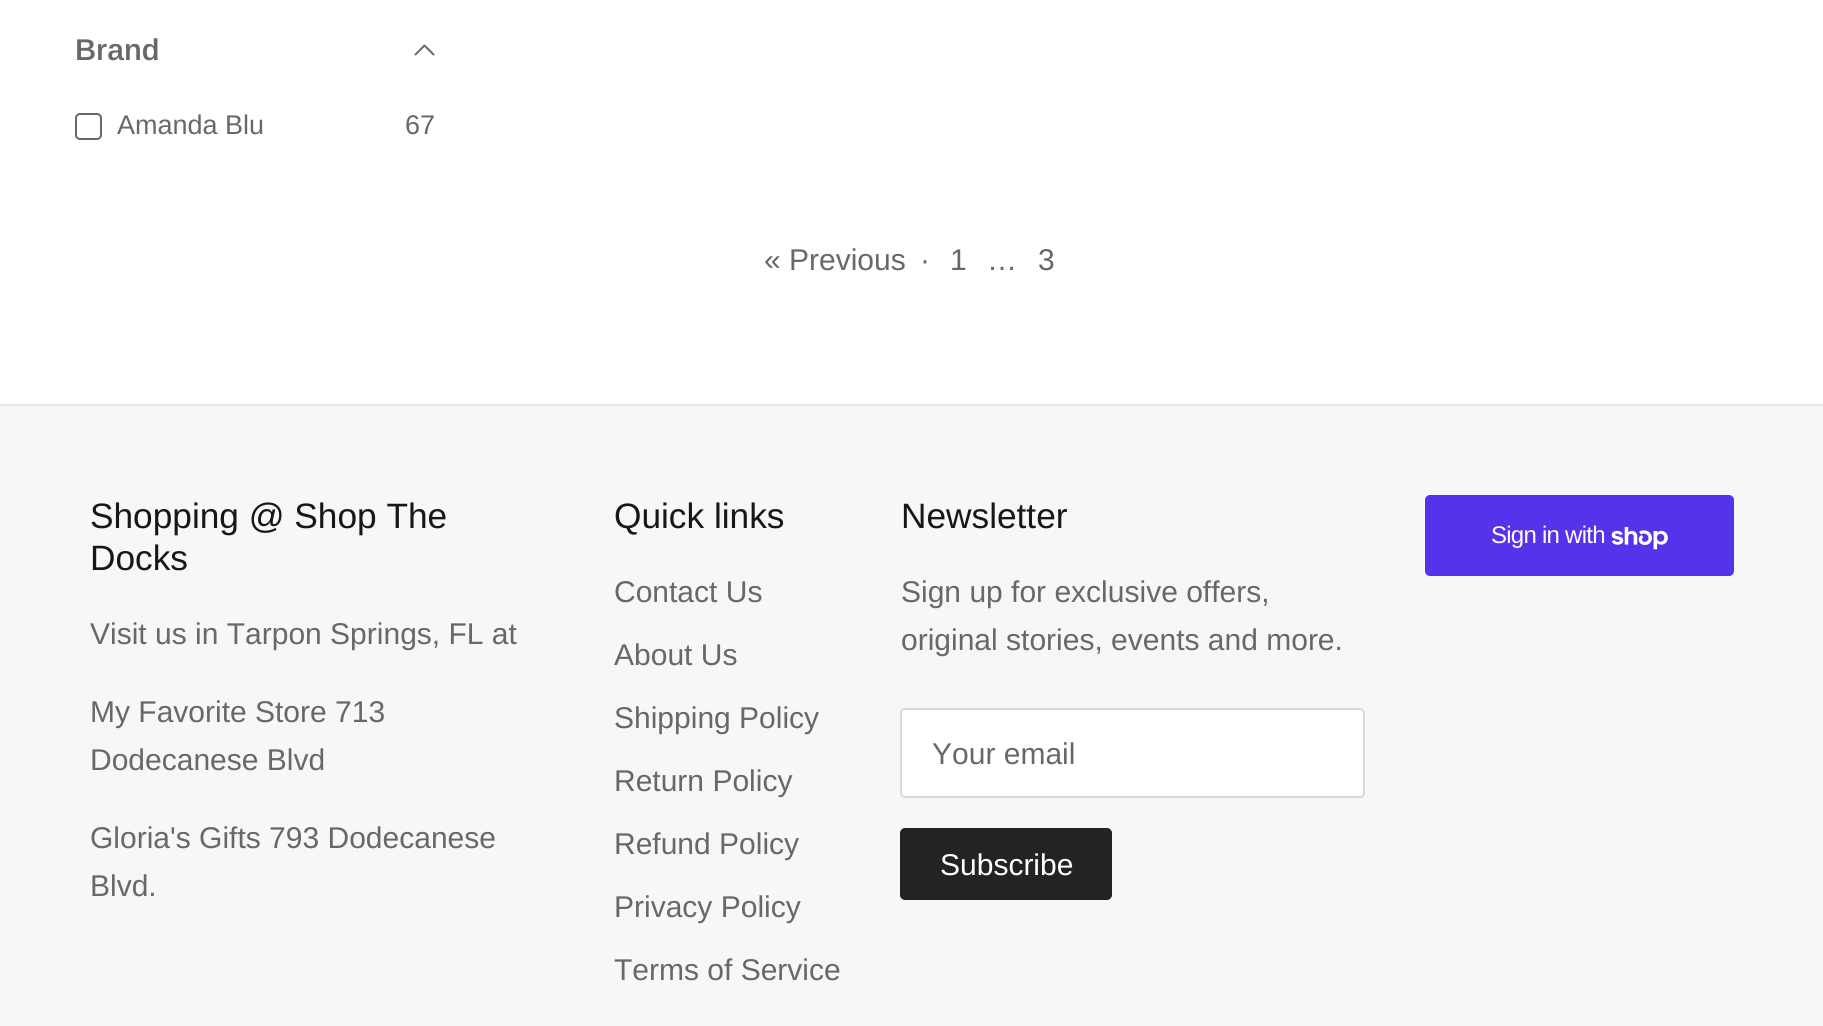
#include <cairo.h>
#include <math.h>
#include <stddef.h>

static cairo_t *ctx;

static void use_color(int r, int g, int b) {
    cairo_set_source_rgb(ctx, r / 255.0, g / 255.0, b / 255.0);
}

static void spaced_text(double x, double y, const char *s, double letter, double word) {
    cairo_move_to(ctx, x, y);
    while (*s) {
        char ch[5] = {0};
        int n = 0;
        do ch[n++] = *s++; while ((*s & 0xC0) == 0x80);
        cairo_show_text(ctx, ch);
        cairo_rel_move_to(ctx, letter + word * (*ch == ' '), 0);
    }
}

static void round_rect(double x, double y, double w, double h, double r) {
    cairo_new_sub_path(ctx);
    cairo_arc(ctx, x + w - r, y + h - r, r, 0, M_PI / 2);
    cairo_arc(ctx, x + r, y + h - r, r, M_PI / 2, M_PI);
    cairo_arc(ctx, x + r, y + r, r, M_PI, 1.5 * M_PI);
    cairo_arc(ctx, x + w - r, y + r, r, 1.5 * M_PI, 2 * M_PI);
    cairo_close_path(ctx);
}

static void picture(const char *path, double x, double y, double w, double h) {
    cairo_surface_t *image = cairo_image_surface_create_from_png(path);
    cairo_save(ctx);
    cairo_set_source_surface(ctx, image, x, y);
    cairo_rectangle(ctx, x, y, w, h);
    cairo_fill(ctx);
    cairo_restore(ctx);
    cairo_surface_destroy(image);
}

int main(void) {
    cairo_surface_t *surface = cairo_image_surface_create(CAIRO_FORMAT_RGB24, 1823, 1026);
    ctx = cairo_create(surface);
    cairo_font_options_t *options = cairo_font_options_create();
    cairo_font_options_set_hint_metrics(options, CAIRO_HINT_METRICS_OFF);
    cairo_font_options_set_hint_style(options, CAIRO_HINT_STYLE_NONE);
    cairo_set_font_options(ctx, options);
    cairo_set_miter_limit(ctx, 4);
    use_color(255, 255, 255);
    cairo_paint(ctx);
    cairo_select_font_face(ctx, "Arimo SemiBold", CAIRO_FONT_SLANT_NORMAL, CAIRO_FONT_WEIGHT_NORMAL);
    cairo_set_font_size(ctx, 30);
    use_color(103, 104, 105);
    cairo_move_to(ctx, 75, 60);
    cairo_show_text(ctx, "Brand");
    cairo_new_path(ctx);
    cairo_move_to(ctx, 433.5, 54.5);
    cairo_line_to(ctx, 424.5, 45.5);
    cairo_line_to(ctx, 415.5, 54.5);
    cairo_set_line_cap(ctx, CAIRO_LINE_CAP_ROUND);
    cairo_set_line_join(ctx, CAIRO_LINE_JOIN_ROUND);
    cairo_stroke(ctx);
    round_rect(76, 114, 25, 25, 4);
    cairo_set_line_cap(ctx, CAIRO_LINE_CAP_BUTT);
    cairo_set_line_join(ctx, CAIRO_LINE_JOIN_MITER);
    cairo_stroke(ctx);
    cairo_select_font_face(ctx, "Arimo", CAIRO_FONT_SLANT_NORMAL, CAIRO_FONT_WEIGHT_NORMAL);
    cairo_set_font_size(ctx, 27);
    cairo_move_to(ctx, 117, 134);
    cairo_show_text(ctx, "Amanda Blu");
    cairo_move_to(ctx, 405, 134);
    cairo_show_text(ctx, "67");
    cairo_set_font_size(ctx, 30);
    cairo_move_to(ctx, 764, 270);
    cairo_show_text(ctx, "« Previous");
    cairo_move_to(ctx, 920, 270);
    cairo_show_text(ctx, "·");
    cairo_move_to(ctx, 950, 270);
    cairo_show_text(ctx, "1");
    cairo_move_to(ctx, 1038, 270);
    cairo_show_text(ctx, "3");
    cairo_move_to(ctx, 987, 270);
    cairo_show_text(ctx, "…");
    use_color(247, 247, 248);
    cairo_rectangle(ctx, 0, 406, 1823, 620);
    cairo_fill(ctx);
    use_color(228, 228, 228);
    cairo_rectangle(ctx, 0, 404, 1823, 2);
    cairo_fill(ctx);
    cairo_set_font_size(ctx, 35.25);
    use_color(23, 23, 23);
    cairo_move_to(ctx, 90, 528);
    cairo_show_text(ctx, "Shopping @ Shop The");
    cairo_move_to(ctx, 90, 570);
    cairo_show_text(ctx, "Docks");
    cairo_set_font_size(ctx, 30);
    use_color(103, 104, 105);
    cairo_move_to(ctx, 90, 644);
    cairo_show_text(ctx, "Visit us in Tarpon Springs, FL at");
    cairo_move_to(ctx, 90, 722);
    cairo_show_text(ctx, "My Favorite Store 713");
    cairo_move_to(ctx, 90, 770);
    cairo_show_text(ctx, "Dodecanese Blvd");
    cairo_move_to(ctx, 90, 848);
    cairo_show_text(ctx, "Gloria's Gifts 793 Dodecanese");
    cairo_move_to(ctx, 90, 896);
    cairo_show_text(ctx, "Blvd.");
    cairo_set_font_size(ctx, 35.25);
    use_color(23, 23, 23);
    cairo_move_to(ctx, 614, 528);
    cairo_show_text(ctx, "Quick links");
    cairo_set_font_size(ctx, 30);
    use_color(103, 104, 105);
    cairo_move_to(ctx, 614, 602);
    cairo_show_text(ctx, "Contact Us");
    cairo_move_to(ctx, 614, 665);
    cairo_show_text(ctx, "About Us");
    cairo_move_to(ctx, 614, 728);
    cairo_show_text(ctx, "Shipping Policy");
    cairo_move_to(ctx, 614, 791);
    cairo_show_text(ctx, "Return Policy");
    cairo_move_to(ctx, 614, 854);
    cairo_show_text(ctx, "Refund Policy");
    cairo_move_to(ctx, 614, 917);
    cairo_show_text(ctx, "Privacy Policy");
    cairo_move_to(ctx, 614, 980);
    cairo_show_text(ctx, "Terms of Service");
    cairo_set_font_size(ctx, 35.25);
    use_color(23, 23, 23);
    cairo_move_to(ctx, 901, 528);
    cairo_show_text(ctx, "Newsletter");
    cairo_set_font_size(ctx, 30);
    use_color(103, 104, 105);
    cairo_move_to(ctx, 901, 602);
    cairo_show_text(ctx, "Sign up for exclusive offers,");
    cairo_move_to(ctx, 901, 650);
    cairo_show_text(ctx, "original stories, events and more.");
    use_color(255, 255, 255);
    round_rect(901, 709, 463, 88, 4);
    cairo_fill_preserve(ctx);
    use_color(217, 217, 218);
    cairo_stroke(ctx);
    use_color(103, 104, 105);
    cairo_move_to(ctx, 932, 764);
    cairo_show_text(ctx, "Your email");
    use_color(35, 35, 35);
    round_rect(901, 829, 210, 70, 4);
    cairo_fill_preserve(ctx);
    cairo_stroke(ctx);
    use_color(255, 255, 255);
    cairo_move_to(ctx, 940, 875);
    cairo_show_text(ctx, "Subscribe");
    use_color(84, 51, 235);
    round_rect(1425, 495, 309, 81, 5);
    cairo_fill(ctx);
    cairo_select_font_face(ctx, "Liberation Sans", CAIRO_FONT_SLANT_NORMAL, CAIRO_FONT_WEIGHT_NORMAL);
    cairo_set_font_size(ctx, 24);
    use_color(255, 255, 255);
    spaced_text(1491, 543, "Sign in with", -0.75, 0);
    picture("img1.png", 1611, 527, 57, 23);
    cairo_surface_write_to_png(surface, "result.png");
    cairo_font_options_destroy(options);
    cairo_destroy(ctx);
    cairo_surface_destroy(surface);
    return 0;
}
